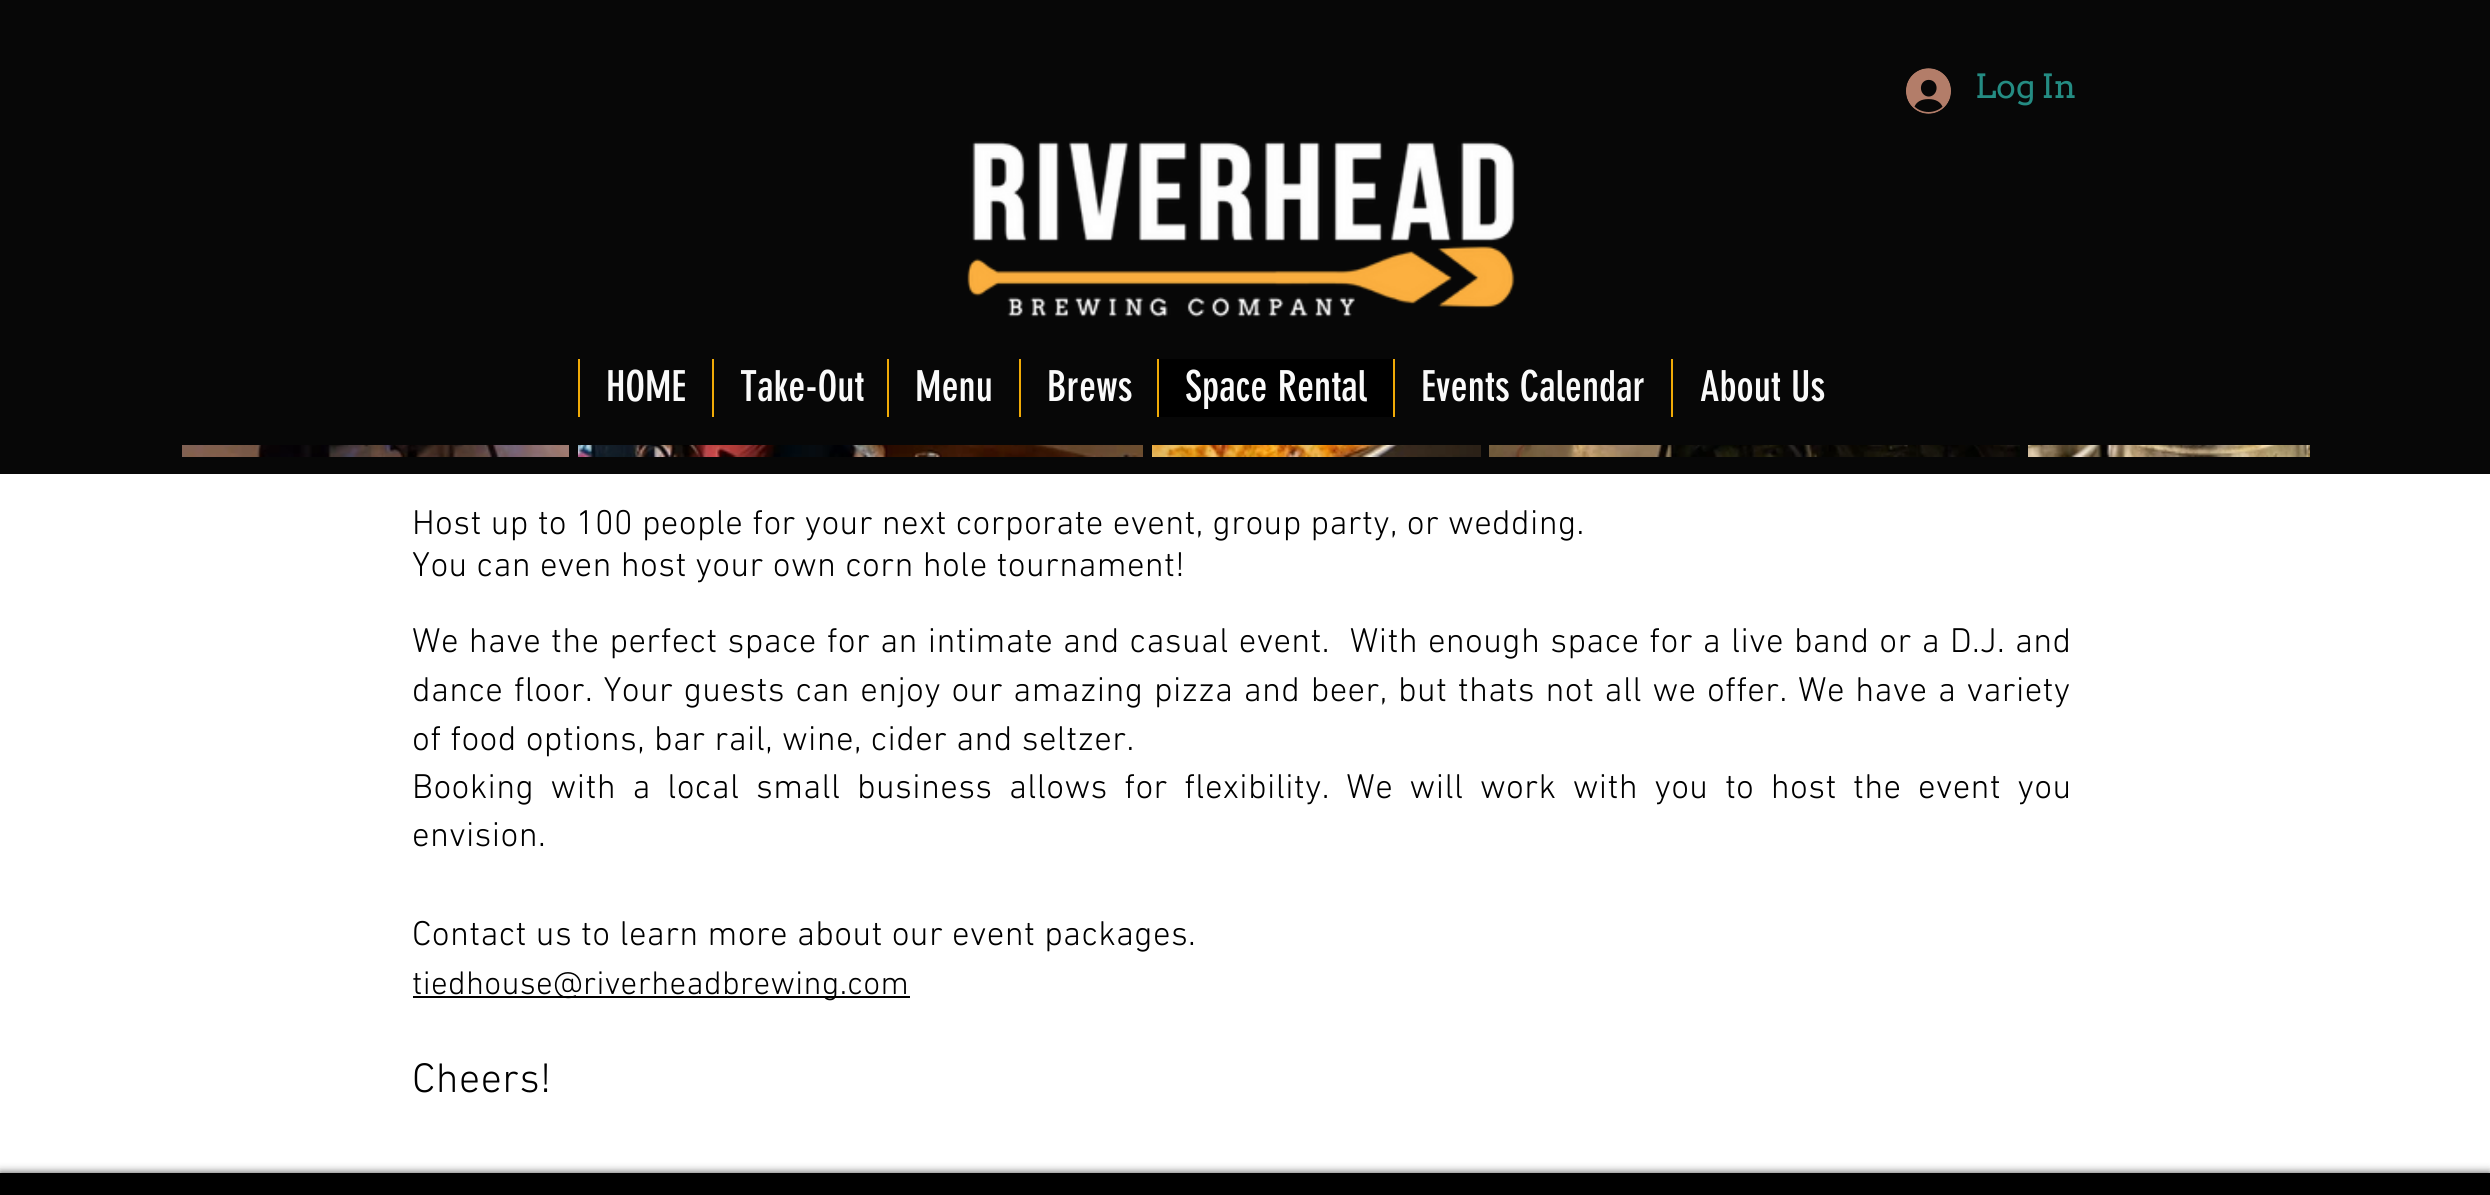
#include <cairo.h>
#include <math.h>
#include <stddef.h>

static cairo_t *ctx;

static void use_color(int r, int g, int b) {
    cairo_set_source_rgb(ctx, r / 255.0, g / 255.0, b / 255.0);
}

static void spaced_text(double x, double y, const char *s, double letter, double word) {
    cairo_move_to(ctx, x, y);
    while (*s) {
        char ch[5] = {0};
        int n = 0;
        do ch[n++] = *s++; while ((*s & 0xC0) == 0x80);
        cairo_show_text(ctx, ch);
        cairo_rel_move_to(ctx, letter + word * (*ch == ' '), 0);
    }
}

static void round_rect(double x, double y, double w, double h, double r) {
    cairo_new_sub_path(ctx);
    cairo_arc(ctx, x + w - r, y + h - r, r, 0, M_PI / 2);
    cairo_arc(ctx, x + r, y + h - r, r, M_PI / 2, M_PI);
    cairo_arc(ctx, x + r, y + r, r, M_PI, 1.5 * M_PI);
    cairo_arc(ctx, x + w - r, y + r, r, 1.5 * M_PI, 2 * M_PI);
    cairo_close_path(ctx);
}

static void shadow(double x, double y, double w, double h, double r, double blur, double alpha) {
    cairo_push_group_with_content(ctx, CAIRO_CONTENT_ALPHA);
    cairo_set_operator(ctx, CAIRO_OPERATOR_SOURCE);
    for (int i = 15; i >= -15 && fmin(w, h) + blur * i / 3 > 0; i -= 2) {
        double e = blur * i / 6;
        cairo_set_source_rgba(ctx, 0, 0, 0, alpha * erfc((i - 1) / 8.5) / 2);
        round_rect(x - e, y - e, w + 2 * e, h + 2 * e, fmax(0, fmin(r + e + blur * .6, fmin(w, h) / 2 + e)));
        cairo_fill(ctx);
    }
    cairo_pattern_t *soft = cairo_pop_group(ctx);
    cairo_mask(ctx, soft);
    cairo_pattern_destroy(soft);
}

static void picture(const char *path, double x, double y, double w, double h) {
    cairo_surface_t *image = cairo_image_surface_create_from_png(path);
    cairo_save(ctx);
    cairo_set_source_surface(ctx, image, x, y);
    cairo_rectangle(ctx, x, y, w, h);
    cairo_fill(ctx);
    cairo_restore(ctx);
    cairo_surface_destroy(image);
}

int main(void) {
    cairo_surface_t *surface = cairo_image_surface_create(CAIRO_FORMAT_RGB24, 2490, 1195);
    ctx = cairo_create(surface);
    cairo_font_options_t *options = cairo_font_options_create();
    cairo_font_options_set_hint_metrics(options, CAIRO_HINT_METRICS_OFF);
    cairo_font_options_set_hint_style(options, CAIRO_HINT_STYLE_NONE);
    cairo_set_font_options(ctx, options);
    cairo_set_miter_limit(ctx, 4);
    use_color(7, 7, 7);
    cairo_paint(ctx);
    picture("img1.png", 1906, 68, 45, 46);
    cairo_select_font_face(ctx, "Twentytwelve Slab", CAIRO_FONT_SLANT_NORMAL, CAIRO_FONT_WEIGHT_NORMAL);
    cairo_set_font_size(ctx, 33.25);
    use_color(36, 140, 131);
    cairo_move_to(ctx, 1975, 98);
    cairo_show_text(ctx, "Log In");
    picture("img2.png", 967, 141, 548, 176);
    use_color(240, 170, 6);
    cairo_rectangle(ctx, 578, 359, 2, 58);
    cairo_fill(ctx);
    cairo_select_font_face(ctx, "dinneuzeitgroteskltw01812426", CAIRO_FONT_SLANT_NORMAL, CAIRO_FONT_WEIGHT_NORMAL);
    cairo_set_font_size(ctx, 42);
    use_color(250, 250, 250);
    cairo_move_to(ctx, 606, 401);
    cairo_show_text(ctx, "HOME");
    use_color(240, 170, 6);
    cairo_rectangle(ctx, 712, 359, 2, 58);
    cairo_fill(ctx);
    use_color(250, 250, 250);
    cairo_move_to(ctx, 740, 401);
    cairo_show_text(ctx, "Take-Out");
    use_color(240, 170, 6);
    cairo_rectangle(ctx, 887, 359, 2, 58);
    cairo_fill(ctx);
    use_color(250, 250, 250);
    cairo_move_to(ctx, 915, 401);
    cairo_show_text(ctx, "Menu");
    use_color(240, 170, 6);
    cairo_rectangle(ctx, 1019, 359, 2, 58);
    cairo_fill(ctx);
    use_color(250, 250, 250);
    cairo_move_to(ctx, 1047, 401);
    cairo_show_text(ctx, "Brews");
    use_color(0, 0, 0);
    cairo_rectangle(ctx, 1159, 359, 234, 58);
    cairo_fill(ctx);
    use_color(240, 170, 6);
    cairo_rectangle(ctx, 1157, 359, 2, 58);
    cairo_fill(ctx);
    use_color(250, 250, 250);
    cairo_move_to(ctx, 1185, 401);
    cairo_show_text(ctx, "Space Rental");
    use_color(240, 170, 6);
    cairo_rectangle(ctx, 1393, 359, 2, 58);
    cairo_fill(ctx);
    use_color(250, 250, 250);
    cairo_move_to(ctx, 1421, 401);
    cairo_show_text(ctx, "Events Calendar");
    use_color(240, 170, 6);
    cairo_rectangle(ctx, 1671, 359, 2, 58);
    cairo_fill(ctx);
    use_color(250, 250, 250);
    cairo_move_to(ctx, 1700, 401);
    cairo_show_text(ctx, "About Us");
    picture("img3.png", 182, 445, 387, 12);
    picture("img4.png", 578, 445, 565, 12);
    picture("img5.png", 1152, 445, 329, 12);
    picture("img6.png", 1489, 445, 531, 12);
    picture("img7.png", 2028, 445, 282, 12);
    use_color(255, 255, 255);
    cairo_rectangle(ctx, 0, 474, 2490, 699);
    cairo_fill(ctx);
    cairo_select_font_face(ctx, "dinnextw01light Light", CAIRO_FONT_SLANT_NORMAL, CAIRO_FONT_WEIGHT_NORMAL);
    cairo_set_font_size(ctx, 35);
    use_color(0, 0, 0);
    spaced_text(412, 534, "Host up to 100 people for your next corporate event, group party, or wedding.", 0.35, 0);
    spaced_text(412, 576, "You can even host your own corn hole tournament!", 0.35, 0);
    spaced_text(412, 652, "We have the perfect space for an intimate and casual event.  With enough space for a live band or a D.J. and", 0.35, 1);
    spaced_text(412, 701, "dance floor. Your guests can enjoy our amazing", 0.35, 1.5);
    spaced_text(1154, 701, "pizza and beer, but thats not all we offer. We have a variety", 0.35, 1.5);
    spaced_text(412, 750, "of food options, bar rail, wine, cider and seltzer.", 0.35, 0);
    spaced_text(412, 798, "Booking with a local small business allows for flexibility. We will work with you to host the event you", 0.35, 7.5);
    spaced_text(412, 846, "envision.", 0.35, 0);
    spaced_text(412, 945, "Contact us to learn more about our event packages.", 0.35, 0);
    cairo_rectangle(ctx, 413, 996, 497, 2);
    cairo_fill(ctx);
    cairo_set_font_size(ctx, 33.25);
    spaced_text(412, 994, "tiedhouse@riverheadbrewing.com", 0.35, 0);
    cairo_set_font_size(ctx, 42);
    spaced_text(412, 1092, "Cheers!", 0.5, 0);
    use_color(0, 0, 0);
    shadow(0, 1173, 2490, 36, 0, 4.5, 0.7);
    use_color(0, 0, 0);
    cairo_rectangle(ctx, 0, 1173, 2490, 22);
    cairo_fill(ctx);
    cairo_surface_write_to_png(surface, "result.png");
    cairo_font_options_destroy(options);
    cairo_destroy(ctx);
    cairo_surface_destroy(surface);
    return 0;
}
